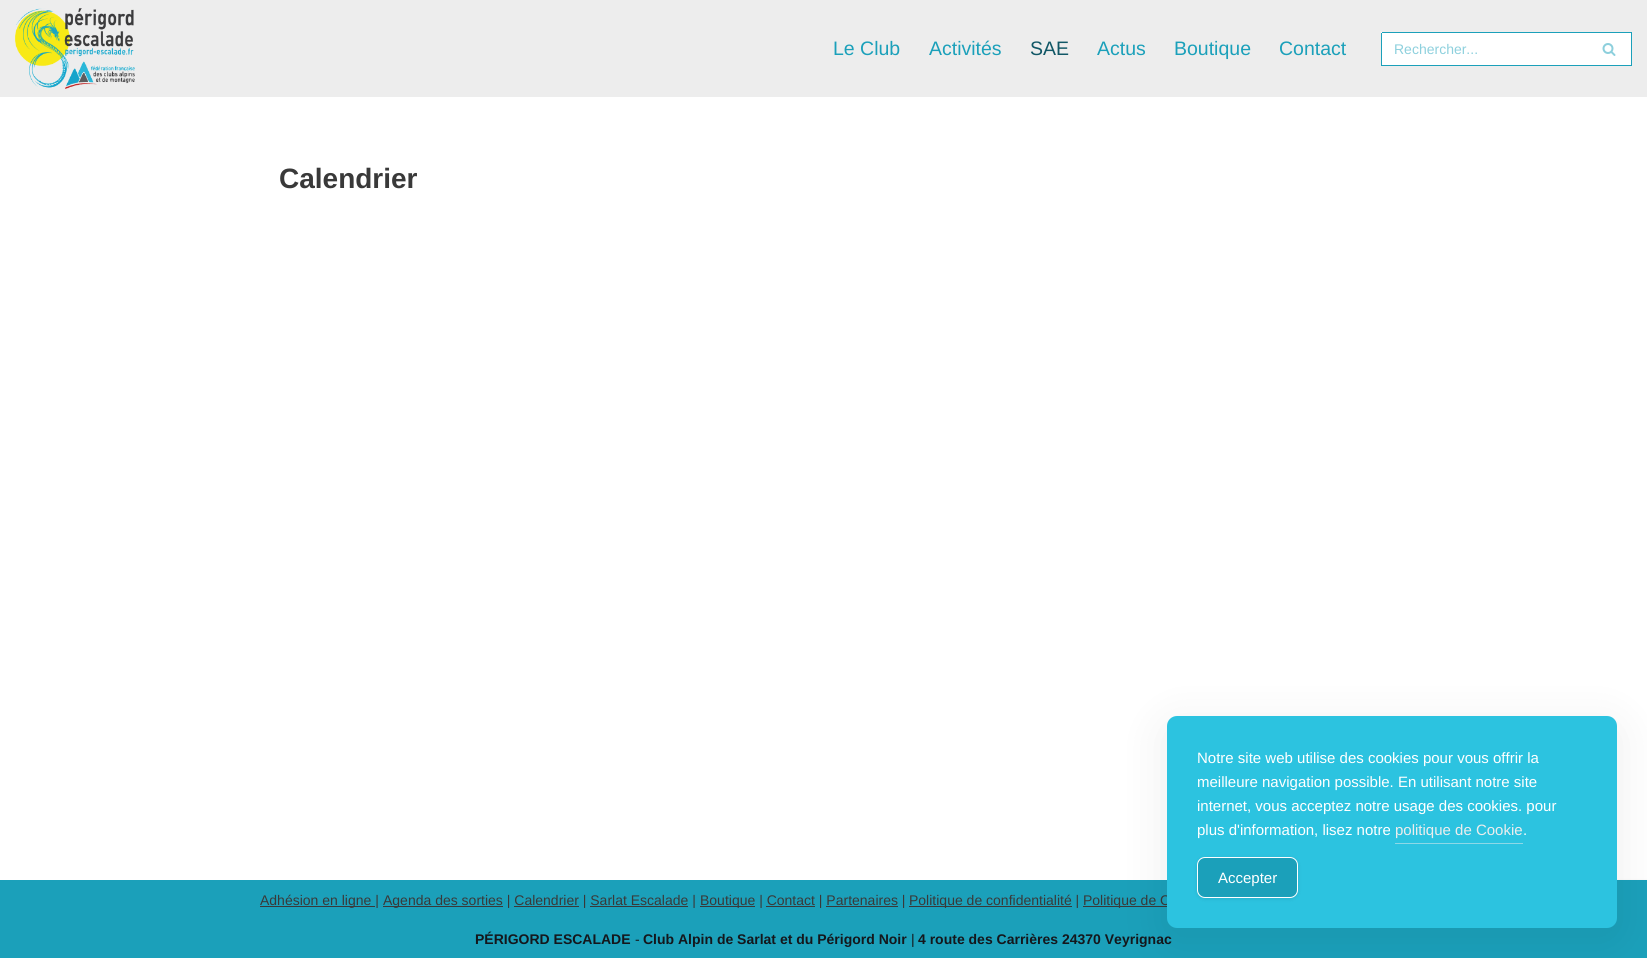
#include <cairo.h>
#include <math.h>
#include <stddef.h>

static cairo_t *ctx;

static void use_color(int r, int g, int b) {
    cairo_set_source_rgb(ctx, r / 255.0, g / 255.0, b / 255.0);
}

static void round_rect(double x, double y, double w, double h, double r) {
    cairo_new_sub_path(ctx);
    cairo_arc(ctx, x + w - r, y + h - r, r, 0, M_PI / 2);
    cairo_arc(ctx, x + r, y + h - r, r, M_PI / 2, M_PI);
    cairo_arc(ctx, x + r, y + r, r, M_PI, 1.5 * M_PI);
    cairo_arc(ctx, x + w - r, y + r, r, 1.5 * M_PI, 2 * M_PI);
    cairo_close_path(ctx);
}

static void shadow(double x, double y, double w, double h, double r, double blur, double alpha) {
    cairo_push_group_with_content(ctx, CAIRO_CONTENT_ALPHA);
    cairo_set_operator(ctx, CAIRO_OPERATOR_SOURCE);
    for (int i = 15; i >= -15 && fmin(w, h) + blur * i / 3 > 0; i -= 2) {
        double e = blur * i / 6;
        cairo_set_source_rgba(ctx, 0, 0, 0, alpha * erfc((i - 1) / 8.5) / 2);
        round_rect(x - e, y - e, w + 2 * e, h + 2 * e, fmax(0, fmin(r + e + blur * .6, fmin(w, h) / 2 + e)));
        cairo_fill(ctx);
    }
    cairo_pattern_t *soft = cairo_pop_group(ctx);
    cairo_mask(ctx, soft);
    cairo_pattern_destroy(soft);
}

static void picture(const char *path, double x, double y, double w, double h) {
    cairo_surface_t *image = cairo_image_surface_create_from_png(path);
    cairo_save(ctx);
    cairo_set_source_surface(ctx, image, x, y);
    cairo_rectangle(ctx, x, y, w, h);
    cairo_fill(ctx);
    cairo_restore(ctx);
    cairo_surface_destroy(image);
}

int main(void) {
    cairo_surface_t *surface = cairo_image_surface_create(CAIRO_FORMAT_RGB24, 1647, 958);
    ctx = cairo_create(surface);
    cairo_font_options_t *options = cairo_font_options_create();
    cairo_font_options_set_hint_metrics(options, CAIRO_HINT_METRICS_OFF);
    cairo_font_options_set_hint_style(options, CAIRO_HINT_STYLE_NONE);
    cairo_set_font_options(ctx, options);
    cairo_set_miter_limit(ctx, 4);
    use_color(255, 255, 255);
    cairo_paint(ctx);
    use_color(237, 237, 237);
    cairo_rectangle(ctx, 0, 0, 1647, 97);
    cairo_fill(ctx);
    picture("img1.png", 15, 8, 120, 81);
    cairo_select_font_face(ctx, "Liberation Sans", CAIRO_FONT_SLANT_NORMAL, CAIRO_FONT_WEIGHT_NORMAL);
    cairo_set_font_size(ctx, 19.5);
    use_color(27, 160, 186);
    cairo_move_to(ctx, 833, 55);
    cairo_show_text(ctx, "Le Club");
    cairo_move_to(ctx, 929, 55);
    cairo_show_text(ctx, "Activités");
    use_color(17, 87, 102);
    cairo_move_to(ctx, 1030, 55);
    cairo_show_text(ctx, "SAE");
    use_color(27, 160, 186);
    cairo_move_to(ctx, 1097, 55);
    cairo_show_text(ctx, "Actus");
    cairo_move_to(ctx, 1174, 55);
    cairo_show_text(ctx, "Boutique");
    cairo_move_to(ctx, 1279, 55);
    cairo_show_text(ctx, "Contact");
    use_color(255, 255, 255);
    cairo_new_path(ctx);
    cairo_move_to(ctx, 1382, 32);
    cairo_line_to(ctx, 1587, 32);
    cairo_line_to(ctx, 1587, 66);
    cairo_line_to(ctx, 1382, 66);
    cairo_curve_to(ctx, 1381.5, 66, 1381, 65.5, 1381, 65);
    cairo_line_to(ctx, 1381, 33);
    cairo_curve_to(ctx, 1381, 32.5, 1381.5, 32, 1382, 32);
    cairo_close_path(ctx);
    cairo_fill(ctx);
    use_color(27, 160, 186);
    cairo_rectangle(ctx, 1382, 32, 250, 1);
    cairo_fill(ctx);
    cairo_rectangle(ctx, 1382, 65, 205, 1);
    cairo_fill(ctx);
    cairo_rectangle(ctx, 1381, 33, 1, 33);
    cairo_fill(ctx);
    cairo_set_font_size(ctx, 14);
    use_color(141, 208, 221);
    cairo_move_to(ctx, 1394, 54);
    cairo_show_text(ctx, "Rechercher...");
    use_color(255, 255, 255);
    cairo_rectangle(ctx, 1587, 33, 44, 32);
    cairo_fill(ctx);
    use_color(27, 160, 186);
    cairo_rectangle(ctx, 1631, 33, 1, 33);
    cairo_fill(ctx);
    cairo_rectangle(ctx, 1587, 65, 45, 1);
    cairo_fill(ctx);
    picture("img2.png", 1602, 43, 14, 13);
    cairo_select_font_face(ctx, "Liberation Sans", CAIRO_FONT_SLANT_NORMAL, CAIRO_FONT_WEIGHT_BOLD);
    cairo_set_font_size(ctx, 28);
    use_color(57, 57, 57);
    cairo_move_to(ctx, 279, 188);
    cairo_show_text(ctx, "Calendrier");
    use_color(128, 128, 128);
    shadow(1577, 884, 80, 60, 2, 2.5, 1);
    use_color(27, 160, 186);
    cairo_rectangle(ctx, 0, 880, 1647, 78);
    cairo_fill(ctx);
    use_color(57, 57, 57);
    cairo_rectangle(ctx, 260, 906, 115, 1);
    cairo_fill(ctx);
    cairo_select_font_face(ctx, "Liberation Sans", CAIRO_FONT_SLANT_NORMAL, CAIRO_FONT_WEIGHT_NORMAL);
    cairo_set_font_size(ctx, 14);
    cairo_move_to(ctx, 260, 905);
    cairo_show_text(ctx, "Adhésion en ligne |");
    cairo_rectangle(ctx, 383, 906, 120, 1);
    cairo_fill(ctx);
    cairo_move_to(ctx, 383, 905);
    cairo_show_text(ctx, "Agenda des sorties | Calendrier | Sarlat Escalade |");
    cairo_rectangle(ctx, 700, 906, 55, 1);
    cairo_fill(ctx);
    cairo_move_to(ctx, 700, 905);
    cairo_show_text(ctx, "Boutique | Contact | Partenaires |");
    cairo_rectangle(ctx, 909, 906, 163, 1);
    cairo_fill(ctx);
    cairo_move_to(ctx, 909, 905);
    cairo_show_text(ctx, "Politique de confidentialité |");
    cairo_rectangle(ctx, 1083, 906, 84, 1);
    cairo_fill(ctx);
    cairo_move_to(ctx, 1083, 905);
    cairo_show_text(ctx, "Politique de C");
    cairo_rectangle(ctx, 514, 906, 65, 1);
    cairo_fill(ctx);
    cairo_rectangle(ctx, 590, 906, 98, 1);
    cairo_fill(ctx);
    cairo_rectangle(ctx, 766, 906, 49, 1);
    cairo_fill(ctx);
    cairo_rectangle(ctx, 826, 906, 72, 1);
    cairo_fill(ctx);
    cairo_select_font_face(ctx, "Liberation Sans", CAIRO_FONT_SLANT_NORMAL, CAIRO_FONT_WEIGHT_BOLD);
    use_color(20, 23, 28);
    cairo_move_to(ctx, 475, 944);
    cairo_show_text(ctx, "PÉRIGORD ESCALADE");
    cairo_select_font_face(ctx, "Liberation Sans", CAIRO_FONT_SLANT_NORMAL, CAIRO_FONT_WEIGHT_NORMAL);
    cairo_move_to(ctx, 635, 944);
    cairo_show_text(ctx, "-");
    cairo_select_font_face(ctx, "Liberation Sans", CAIRO_FONT_SLANT_NORMAL, CAIRO_FONT_WEIGHT_BOLD);
    cairo_move_to(ctx, 643, 944);
    cairo_show_text(ctx, "Club Alpin de Sarlat et du Périgord Noir");
    cairo_select_font_face(ctx, "Liberation Sans", CAIRO_FONT_SLANT_NORMAL, CAIRO_FONT_WEIGHT_NORMAL);
    cairo_move_to(ctx, 911, 944);
    cairo_show_text(ctx, "|");
    cairo_select_font_face(ctx, "Liberation Sans", CAIRO_FONT_SLANT_NORMAL, CAIRO_FONT_WEIGHT_BOLD);
    cairo_move_to(ctx, 918, 944);
    cairo_show_text(ctx, "4 route des Carrières 24370 Veyrignac");
    use_color(0, 0, 0);
    shadow(1157, 716, 470, 232, 20, 20, 0.05);
    use_color(44, 195, 224);
    round_rect(1167, 716, 450, 212, 10);
    cairo_fill(ctx);
    cairo_select_font_face(ctx, "Liberation Sans", CAIRO_FONT_SLANT_NORMAL, CAIRO_FONT_WEIGHT_NORMAL);
    cairo_set_font_size(ctx, 15);
    use_color(255, 255, 255);
    cairo_move_to(ctx, 1197, 763);
    cairo_show_text(ctx, "Notre site web utilise des cookies pour vous offrir la");
    cairo_move_to(ctx, 1197, 787);
    cairo_show_text(ctx, "meilleure navigation possible. En utilisant notre site");
    cairo_move_to(ctx, 1197, 811);
    cairo_show_text(ctx, "internet, vous acceptez notre usage des cookies. pour");
    cairo_move_to(ctx, 1197, 835);
    cairo_show_text(ctx, "plus d'information, lisez notre");
    use_color(237, 237, 237);
    cairo_move_to(ctx, 1395, 835);
    cairo_show_text(ctx, "politique de Cookie");
    use_color(141, 216, 231);
    cairo_rectangle(ctx, 1395, 843, 128, 1);
    cairo_fill(ctx);
    use_color(255, 255, 255);
    cairo_move_to(ctx, 1523, 835);
    cairo_show_text(ctx, ".");
    use_color(0, 0, 0);
    shadow(1197, 858, 101, 41, 8, 2, 0.1);
    use_color(27, 160, 186);
    round_rect(1197.5, 857.5, 100, 40, 7.5);
    cairo_fill_preserve(ctx);
    use_color(255, 255, 255);
    cairo_set_line_width(ctx, 1);
    cairo_stroke(ctx);
    cairo_move_to(ctx, 1218, 883);
    cairo_show_text(ctx, "Accepter");
    cairo_surface_write_to_png(surface, "result.png");
    cairo_font_options_destroy(options);
    cairo_destroy(ctx);
    cairo_surface_destroy(surface);
    return 0;
}
